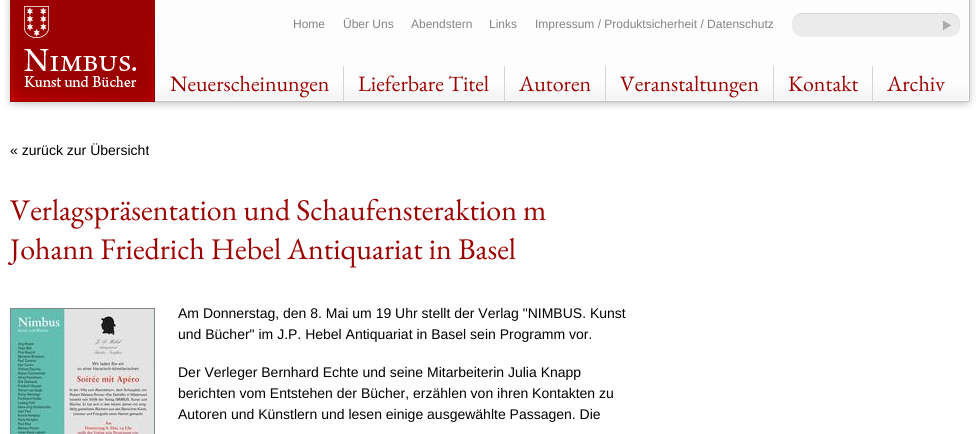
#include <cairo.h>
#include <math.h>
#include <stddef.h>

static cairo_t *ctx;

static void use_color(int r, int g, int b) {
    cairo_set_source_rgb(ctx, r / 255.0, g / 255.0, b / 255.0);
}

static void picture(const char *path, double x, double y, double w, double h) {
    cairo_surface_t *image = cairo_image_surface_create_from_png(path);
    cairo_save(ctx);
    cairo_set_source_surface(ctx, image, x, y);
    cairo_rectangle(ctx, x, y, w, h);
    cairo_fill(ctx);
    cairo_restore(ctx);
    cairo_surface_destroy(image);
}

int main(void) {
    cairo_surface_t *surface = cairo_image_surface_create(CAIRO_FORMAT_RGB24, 976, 434);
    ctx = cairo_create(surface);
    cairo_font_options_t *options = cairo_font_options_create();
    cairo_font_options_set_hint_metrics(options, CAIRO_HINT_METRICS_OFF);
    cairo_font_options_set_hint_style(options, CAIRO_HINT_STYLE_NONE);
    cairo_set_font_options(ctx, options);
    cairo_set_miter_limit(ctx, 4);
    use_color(255, 255, 255);
    cairo_paint(ctx);
    picture("img1.png", 4, 0, 972, 110);
    picture("img2.png", 10, 0, 145, 102);
    cairo_select_font_face(ctx, "Liberation Sans", CAIRO_FONT_SLANT_NORMAL, CAIRO_FONT_WEIGHT_NORMAL);
    cairo_set_font_size(ctx, 12);
    use_color(132, 132, 132);
    cairo_move_to(ctx, 293, 28);
    cairo_show_text(ctx, "Home");
    cairo_move_to(ctx, 343, 28);
    cairo_show_text(ctx, "Über Uns");
    cairo_move_to(ctx, 411, 28);
    cairo_show_text(ctx, "Abendstern");
    cairo_move_to(ctx, 489, 28);
    cairo_show_text(ctx, "Links");
    cairo_move_to(ctx, 535, 28);
    cairo_show_text(ctx, "Impressum / Produktsicherheit / Datenschutz");
    cairo_new_path(ctx);
    cairo_move_to(ctx, 939.5, 13.5);
    cairo_curve_to(ctx, 941.5, 11.5, 946.5, 12.5, 949, 12.5);
    cairo_curve_to(ctx, 951.5, 12.5, 956.5, 11.5, 958.5, 13.5);
    use_color(253, 253, 253);
    cairo_set_line_width(ctx, 1);
    cairo_stroke(ctx);
    cairo_new_path(ctx);
    cairo_move_to(ctx, 939.5, 32.5);
    cairo_curve_to(ctx, 937.5, 30.5, 938.5, 25.5, 938.5, 23);
    cairo_curve_to(ctx, 938.5, 20.5, 937.5, 15.5, 939.5, 13.5);
    use_color(235, 235, 235);
    cairo_stroke(ctx);
    use_color(212, 212, 212);
    cairo_rectangle(ctx, 343, 66, 1, 36);
    cairo_fill(ctx);
    cairo_select_font_face(ctx, "EB Garamond", CAIRO_FONT_SLANT_NORMAL, CAIRO_FONT_WEIGHT_NORMAL);
    cairo_set_font_size(ctx, 22);
    use_color(154, 1, 0);
    cairo_move_to(ctx, 170, 91);
    cairo_show_text(ctx, "Neuerscheinungen");
    use_color(212, 212, 212);
    cairo_rectangle(ctx, 504, 66, 1, 36);
    cairo_fill(ctx);
    use_color(154, 1, 0);
    cairo_move_to(ctx, 358, 91);
    cairo_show_text(ctx, "Lieferbare Titel");
    use_color(212, 212, 212);
    cairo_rectangle(ctx, 605, 66, 1, 36);
    cairo_fill(ctx);
    use_color(154, 1, 0);
    cairo_move_to(ctx, 519, 91);
    cairo_show_text(ctx, "Autoren");
    use_color(212, 212, 212);
    cairo_rectangle(ctx, 773, 66, 1, 36);
    cairo_fill(ctx);
    use_color(154, 1, 0);
    cairo_move_to(ctx, 620, 91);
    cairo_show_text(ctx, "Veranstaltungen");
    use_color(212, 212, 212);
    cairo_rectangle(ctx, 872, 66, 1, 36);
    cairo_fill(ctx);
    use_color(154, 1, 0);
    cairo_move_to(ctx, 788, 91);
    cairo_show_text(ctx, "Kontakt");
    cairo_move_to(ctx, 887, 91);
    cairo_show_text(ctx, "Archiv");
    cairo_select_font_face(ctx, "Liberation Sans", CAIRO_FONT_SLANT_NORMAL, CAIRO_FONT_WEIGHT_NORMAL);
    cairo_set_font_size(ctx, 14);
    use_color(0, 0, 0);
    cairo_move_to(ctx, 10, 155);
    cairo_show_text(ctx, "« zurück zur Übersicht");
    cairo_rectangle(ctx, 10.5, 308.5, 144, 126);
    use_color(136, 136, 136);
    cairo_stroke(ctx);
    picture("img3.png", 11, 309, 143, 125);
    use_color(0, 0, 0);
    cairo_move_to(ctx, 178, 318);
    cairo_show_text(ctx, "Am Donnerstag, den 8. Mai um 19 Uhr stellt der Verlag \"NIMBUS. Kunst");
    cairo_move_to(ctx, 178, 339);
    cairo_show_text(ctx, "und Bücher\" im J.P. Hebel Antiquariat in Basel sein Programm vor.");
    cairo_move_to(ctx, 178, 377);
    cairo_show_text(ctx, "Der Verleger Bernhard Echte und seine Mitarbeiterin Julia Knapp");
    cairo_move_to(ctx, 178, 398);
    cairo_show_text(ctx, "berichten vom Entstehen der Bücher, erzählen von ihren Kontakten zu");
    cairo_move_to(ctx, 178, 419);
    cairo_show_text(ctx, "Autoren und Künstlern und lesen einige ausgewählte Passagen. Die");
    cairo_select_font_face(ctx, "EB Garamond", CAIRO_FONT_SLANT_NORMAL, CAIRO_FONT_WEIGHT_NORMAL);
    cairo_set_font_size(ctx, 30);
    use_color(154, 1, 0);
    cairo_move_to(ctx, 10, 220);
    cairo_show_text(ctx, "Verlagspräsentation und Schaufensteraktion m");
    cairo_move_to(ctx, 10, 259);
    cairo_show_text(ctx, "Johann Friedrich Hebel Antiquariat in Basel");
    cairo_surface_write_to_png(surface, "result.png");
    cairo_font_options_destroy(options);
    cairo_destroy(ctx);
    cairo_surface_destroy(surface);
    return 0;
}
